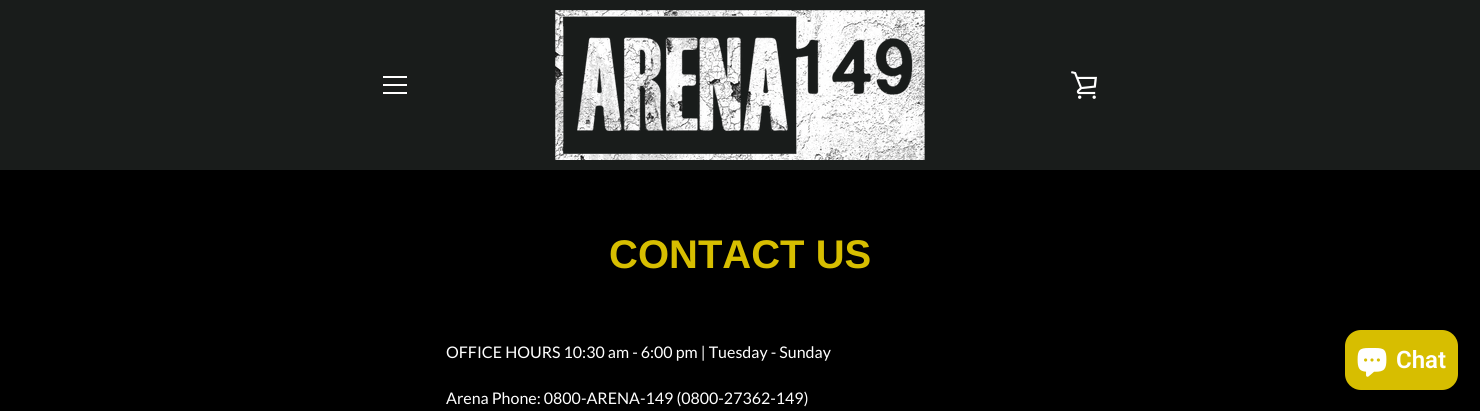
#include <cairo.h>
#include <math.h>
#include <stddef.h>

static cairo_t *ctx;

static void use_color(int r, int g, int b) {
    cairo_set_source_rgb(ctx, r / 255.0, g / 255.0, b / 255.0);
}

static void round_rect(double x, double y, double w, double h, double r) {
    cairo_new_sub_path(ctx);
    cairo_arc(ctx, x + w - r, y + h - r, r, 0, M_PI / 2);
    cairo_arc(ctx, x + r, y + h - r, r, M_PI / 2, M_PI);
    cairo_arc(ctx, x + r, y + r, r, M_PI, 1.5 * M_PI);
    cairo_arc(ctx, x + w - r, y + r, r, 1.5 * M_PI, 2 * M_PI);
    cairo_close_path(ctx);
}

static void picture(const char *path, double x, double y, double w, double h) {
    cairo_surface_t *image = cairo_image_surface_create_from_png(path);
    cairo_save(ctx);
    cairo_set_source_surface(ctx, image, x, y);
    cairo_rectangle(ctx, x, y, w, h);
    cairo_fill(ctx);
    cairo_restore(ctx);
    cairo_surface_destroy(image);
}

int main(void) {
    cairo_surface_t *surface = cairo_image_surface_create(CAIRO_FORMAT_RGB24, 1480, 411);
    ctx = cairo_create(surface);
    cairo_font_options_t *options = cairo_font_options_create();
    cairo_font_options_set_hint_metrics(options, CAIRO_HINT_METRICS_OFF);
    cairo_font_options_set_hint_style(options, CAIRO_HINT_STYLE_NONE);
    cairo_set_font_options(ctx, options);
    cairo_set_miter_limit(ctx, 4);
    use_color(0, 0, 0);
    cairo_paint(ctx);
    use_color(25, 28, 27);
    cairo_rectangle(ctx, 0, 0, 1480, 170);
    cairo_fill(ctx);
    use_color(255, 255, 255);
    cairo_rectangle(ctx, 383, 76, 24, 2);
    cairo_fill(ctx);
    cairo_rectangle(ctx, 383, 84, 24, 2);
    cairo_fill(ctx);
    cairo_rectangle(ctx, 383, 92, 24, 2);
    cairo_fill(ctx);
    picture("img1.png", 555, 10, 370, 150);
    picture("img2.png", 1071, 71, 26, 28);
    cairo_select_font_face(ctx, "Liberation Sans", CAIRO_FONT_SLANT_NORMAL, CAIRO_FONT_WEIGHT_BOLD);
    cairo_set_font_size(ctx, 40);
    use_color(215, 190, 0);
    cairo_move_to(ctx, 609, 268);
    cairo_show_text(ctx, "CONTACT US");
    cairo_select_font_face(ctx, "Lato", CAIRO_FONT_SLANT_NORMAL, CAIRO_FONT_WEIGHT_NORMAL);
    cairo_set_font_size(ctx, 16);
    use_color(255, 255, 255);
    cairo_move_to(ctx, 446, 358);
    cairo_show_text(ctx, "OFFICE HOURS 10:30 am - 6:00 pm | Tuesday - Sunday");
    cairo_move_to(ctx, 446, 404);
    cairo_show_text(ctx, "Arena Phone: 0800-ARENA-149 (0800-27362-149)");
    use_color(215, 190, 0);
    round_rect(1345, 330, 113, 60, 16);
    cairo_fill(ctx);
    picture("img3.png", 1357, 348, 30, 29);
    cairo_select_font_face(ctx, "Roboto SemiBold", CAIRO_FONT_SLANT_NORMAL, CAIRO_FONT_WEIGHT_NORMAL);
    cairo_set_font_size(ctx, 24);
    use_color(255, 255, 255);
    cairo_move_to(ctx, 1396, 368);
    cairo_show_text(ctx, "Chat");
    cairo_surface_write_to_png(surface, "result.png");
    cairo_font_options_destroy(options);
    cairo_destroy(ctx);
    cairo_surface_destroy(surface);
    return 0;
}
